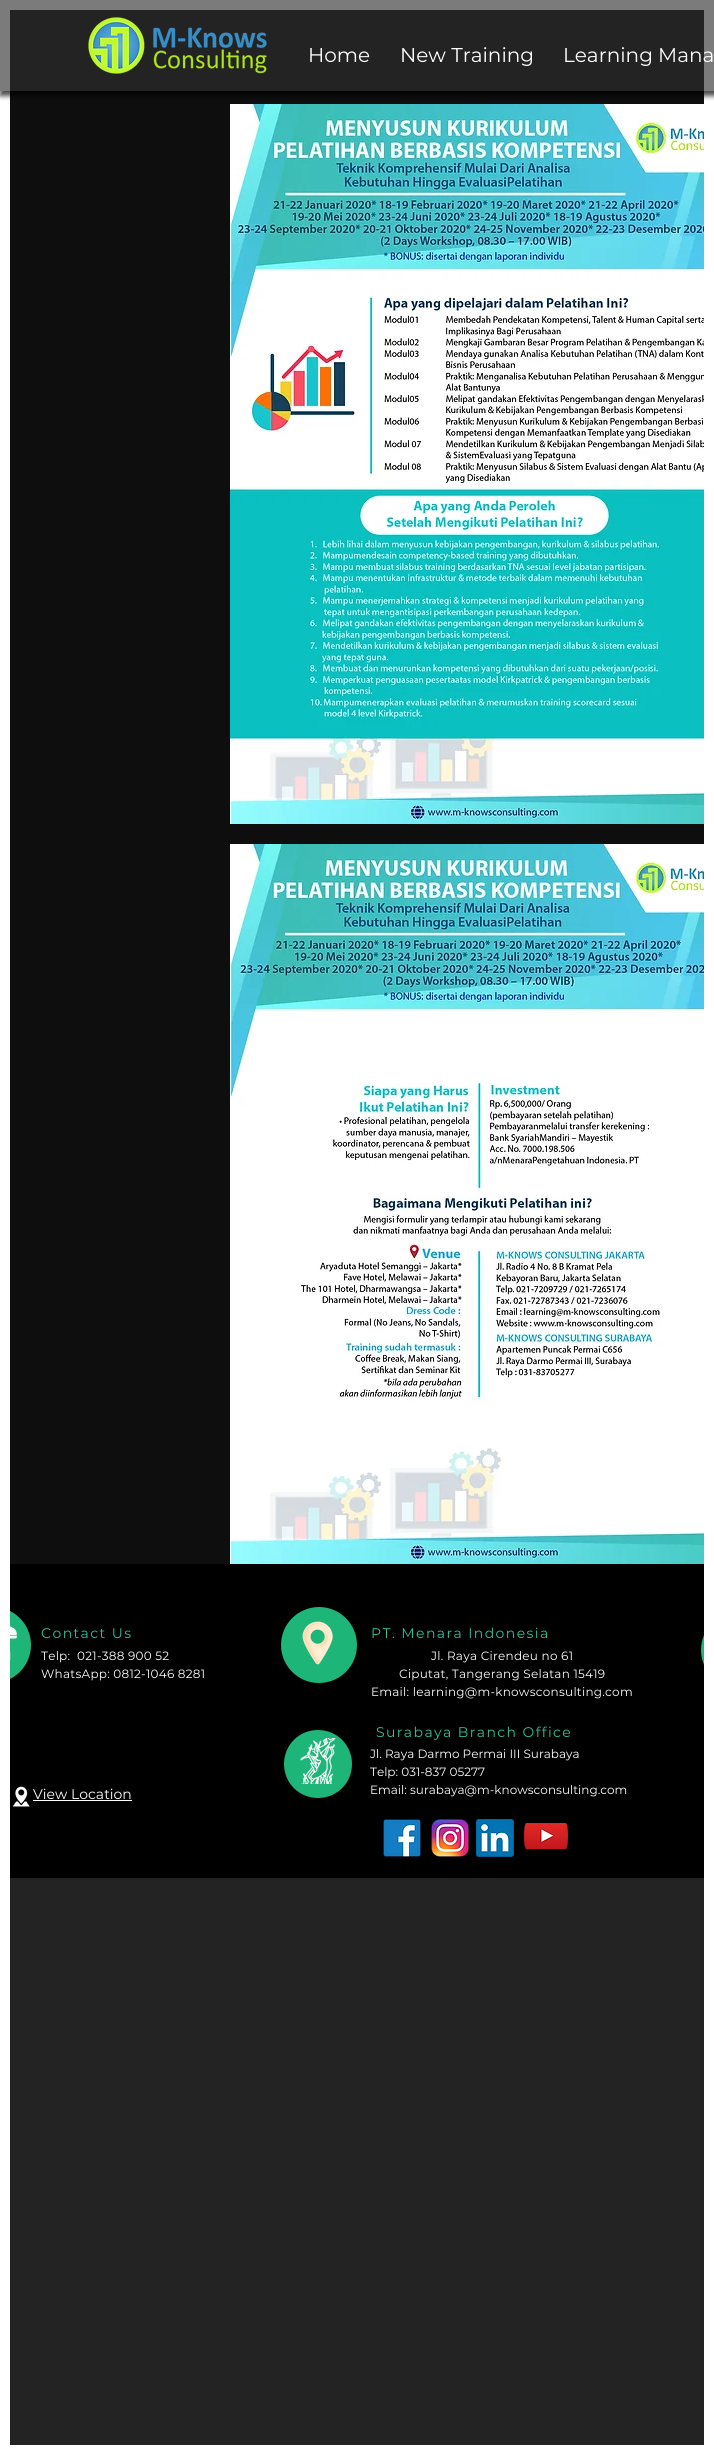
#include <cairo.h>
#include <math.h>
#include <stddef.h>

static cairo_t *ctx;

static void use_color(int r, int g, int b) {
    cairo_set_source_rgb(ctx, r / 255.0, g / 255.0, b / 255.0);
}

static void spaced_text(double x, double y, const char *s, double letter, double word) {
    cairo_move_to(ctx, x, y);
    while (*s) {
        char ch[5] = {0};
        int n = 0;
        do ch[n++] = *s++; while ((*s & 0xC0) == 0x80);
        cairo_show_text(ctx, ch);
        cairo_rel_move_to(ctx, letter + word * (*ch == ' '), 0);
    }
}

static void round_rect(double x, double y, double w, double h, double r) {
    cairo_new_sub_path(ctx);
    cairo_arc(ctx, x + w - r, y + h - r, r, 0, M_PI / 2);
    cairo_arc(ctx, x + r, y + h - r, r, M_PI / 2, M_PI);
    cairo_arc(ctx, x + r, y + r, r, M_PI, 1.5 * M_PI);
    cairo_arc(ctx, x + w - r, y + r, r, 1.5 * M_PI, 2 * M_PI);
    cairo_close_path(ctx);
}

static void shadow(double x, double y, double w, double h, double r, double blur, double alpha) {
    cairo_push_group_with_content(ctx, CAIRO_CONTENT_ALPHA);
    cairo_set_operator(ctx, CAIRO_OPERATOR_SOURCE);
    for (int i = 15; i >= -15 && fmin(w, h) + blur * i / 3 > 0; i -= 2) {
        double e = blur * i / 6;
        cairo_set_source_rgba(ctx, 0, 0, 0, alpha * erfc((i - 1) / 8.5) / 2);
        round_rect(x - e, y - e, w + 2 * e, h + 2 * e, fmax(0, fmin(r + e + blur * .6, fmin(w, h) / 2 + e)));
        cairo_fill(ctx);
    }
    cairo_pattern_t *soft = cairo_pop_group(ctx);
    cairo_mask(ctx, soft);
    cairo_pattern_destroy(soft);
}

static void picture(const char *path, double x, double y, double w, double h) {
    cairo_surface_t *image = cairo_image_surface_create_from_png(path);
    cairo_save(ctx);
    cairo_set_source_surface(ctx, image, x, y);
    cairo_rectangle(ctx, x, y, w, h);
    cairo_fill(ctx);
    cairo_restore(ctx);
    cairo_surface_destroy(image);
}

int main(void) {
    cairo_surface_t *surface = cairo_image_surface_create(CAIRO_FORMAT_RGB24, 714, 2455);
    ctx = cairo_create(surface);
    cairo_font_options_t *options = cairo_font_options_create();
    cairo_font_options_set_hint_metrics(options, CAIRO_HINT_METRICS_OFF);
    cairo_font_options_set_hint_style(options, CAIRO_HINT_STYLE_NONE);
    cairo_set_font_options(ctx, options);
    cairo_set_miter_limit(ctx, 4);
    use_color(35, 35, 35);
    cairo_paint(ctx);
    use_color(0, 0, 0);
    cairo_rectangle(ctx, 10, 1564, 694, 314);
    cairo_fill(ctx);
    use_color(29, 181, 120);
    cairo_new_path(ctx);
    cairo_move_to(ctx, 31, 1645);
    cairo_curve_to(ctx, 31, 1666, 14, 1683, -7, 1683);
    cairo_curve_to(ctx, -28, 1683, -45, 1666, -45, 1645);
    cairo_curve_to(ctx, -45, 1624, -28, 1607, -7, 1607);
    cairo_curve_to(ctx, 14, 1607, 31, 1624, 31, 1645);
    cairo_close_path(ctx);
    cairo_fill(ctx);
    use_color(255, 255, 255);
    cairo_rectangle(ctx, 0, 91, 10, 2364);
    cairo_fill(ctx);
    use_color(123, 123, 123);
    cairo_rectangle(ctx, 0, 0, 10, 91);
    cairo_fill(ctx);
    cairo_rectangle(ctx, 10, 0, 694, 10);
    cairo_fill(ctx);
    use_color(29, 181, 120);
    cairo_new_path(ctx);
    cairo_move_to(ctx, 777, 1650);
    cairo_curve_to(ctx, 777, 1671, 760, 1688, 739, 1688);
    cairo_curve_to(ctx, 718, 1688, 701, 1671, 701, 1650);
    cairo_curve_to(ctx, 701, 1629, 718, 1612, 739, 1612);
    cairo_curve_to(ctx, 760, 1612, 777, 1629, 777, 1650);
    cairo_close_path(ctx);
    cairo_fill(ctx);
    use_color(255, 255, 255);
    cairo_rectangle(ctx, 704, 91, 10, 2354);
    cairo_fill(ctx);
    use_color(123, 123, 123);
    cairo_rectangle(ctx, 704, 0, 10, 91);
    cairo_fill(ctx);
    use_color(14, 14, 14);
    cairo_rectangle(ctx, 10, 91, 694, 1473);
    cairo_fill(ctx);
    picture("img2.png", 230, 104, 474, 720);
    cairo_save(ctx);
    cairo_rectangle(ctx, 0, 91, 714, 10);
    cairo_clip(ctx);
    use_color(0, 0, 0);
    shadow(0, 5, 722, 91, 0, 2.5, 0.7);
    cairo_restore(ctx);
    picture("img1.png", 88, 17, 179, 57);
    cairo_select_font_face(ctx, "Montserrat", CAIRO_FONT_SLANT_NORMAL, CAIRO_FONT_WEIGHT_NORMAL);
    cairo_set_font_size(ctx, 20);
    use_color(255, 255, 255);
    cairo_move_to(ctx, 308, 62);
    cairo_show_text(ctx, "Home");
    cairo_move_to(ctx, 400, 62);
    cairo_show_text(ctx, "New Training");
    cairo_move_to(ctx, 563, 62);
    cairo_show_text(ctx, "Learning Mana");
    picture("img3.png", 230, 844, 474, 720);
    picture("img4.png", 10, 1626, 7, 34);
    cairo_set_font_size(ctx, 14);
    use_color(48, 194, 157);
    spaced_text(41, 1638, "Contact Us", 1.4, 0);
    use_color(29, 181, 120);
    cairo_new_path(ctx);
    cairo_move_to(ctx, 357, 1645);
    cairo_curve_to(ctx, 357, 1666, 340, 1683, 319, 1683);
    cairo_curve_to(ctx, 298, 1683, 281, 1666, 281, 1645);
    cairo_curve_to(ctx, 281, 1624, 298, 1607, 319, 1607);
    cairo_curve_to(ctx, 340, 1607, 357, 1624, 357, 1645);
    cairo_close_path(ctx);
    cairo_fill(ctx);
    picture("img5.png", 302, 1621, 31, 44);
    use_color(48, 194, 157);
    spaced_text(371, 1638, "PT. Menara Indonesia", 1.4, 0);
    cairo_set_font_size(ctx, 12);
    use_color(255, 255, 255);
    spaced_text(41, 1660, "Telp:  021-388 900 52", 0.25, 0);
    spaced_text(41, 1678, "WhatsApp: 0812-1046 8281", 0.25, 0);
    spaced_text(431, 1660, "Jl. Raya Cirendeu no 61", 0.25, 0);
    spaced_text(399, 1678, "Ciputat, Tangerang Selatan 15419", 0.25, 0);
    spaced_text(371, 1696, "Email: learning@m-knowsconsulting.com", 0.25, 0);
    use_color(29, 181, 120);
    cairo_new_path(ctx);
    cairo_move_to(ctx, 352, 1764);
    cairo_curve_to(ctx, 352, 1783, 337, 1798, 318, 1798);
    cairo_curve_to(ctx, 299, 1798, 284, 1783, 284, 1764);
    cairo_curve_to(ctx, 284, 1745, 299, 1730, 318, 1730);
    cairo_curve_to(ctx, 337, 1730, 352, 1745, 352, 1764);
    cairo_close_path(ctx);
    cairo_fill(ctx);
    picture("img6.png", 300, 1738, 36, 46);
    cairo_set_font_size(ctx, 14);
    use_color(48, 194, 157);
    spaced_text(376, 1737, "Surabaya Branch Office", 1.4, 0);
    picture("img7.png", 12, 1786, 18, 21);
    use_color(255, 255, 255);
    cairo_move_to(ctx, 33, 1799);
    cairo_show_text(ctx, "View Location");
    cairo_rectangle(ctx, 33, 1800, 99, 1);
    cairo_fill(ctx);
    cairo_set_font_size(ctx, 12);
    cairo_move_to(ctx, 370, 1758);
    cairo_show_text(ctx, "Jl. Raya Darmo Permai III Surabaya");
    cairo_move_to(ctx, 370, 1776);
    cairo_show_text(ctx, "Telp: 031-837 05277");
    cairo_move_to(ctx, 370, 1794);
    cairo_show_text(ctx, "Email: surabaya@m-knowsconsulting.com");
    picture("img8.png", 383, 1819, 38, 38);
    picture("img9.png", 431, 1819, 38, 38);
    picture("img10.png", 476, 1819, 38, 38);
    picture("img11.png", 524, 1823, 44, 26);
    cairo_rectangle(ctx, 10, 2445, 704, 10);
    cairo_fill(ctx);
    cairo_surface_write_to_png(surface, "result.png");
    cairo_font_options_destroy(options);
    cairo_destroy(ctx);
    cairo_surface_destroy(surface);
    return 0;
}
